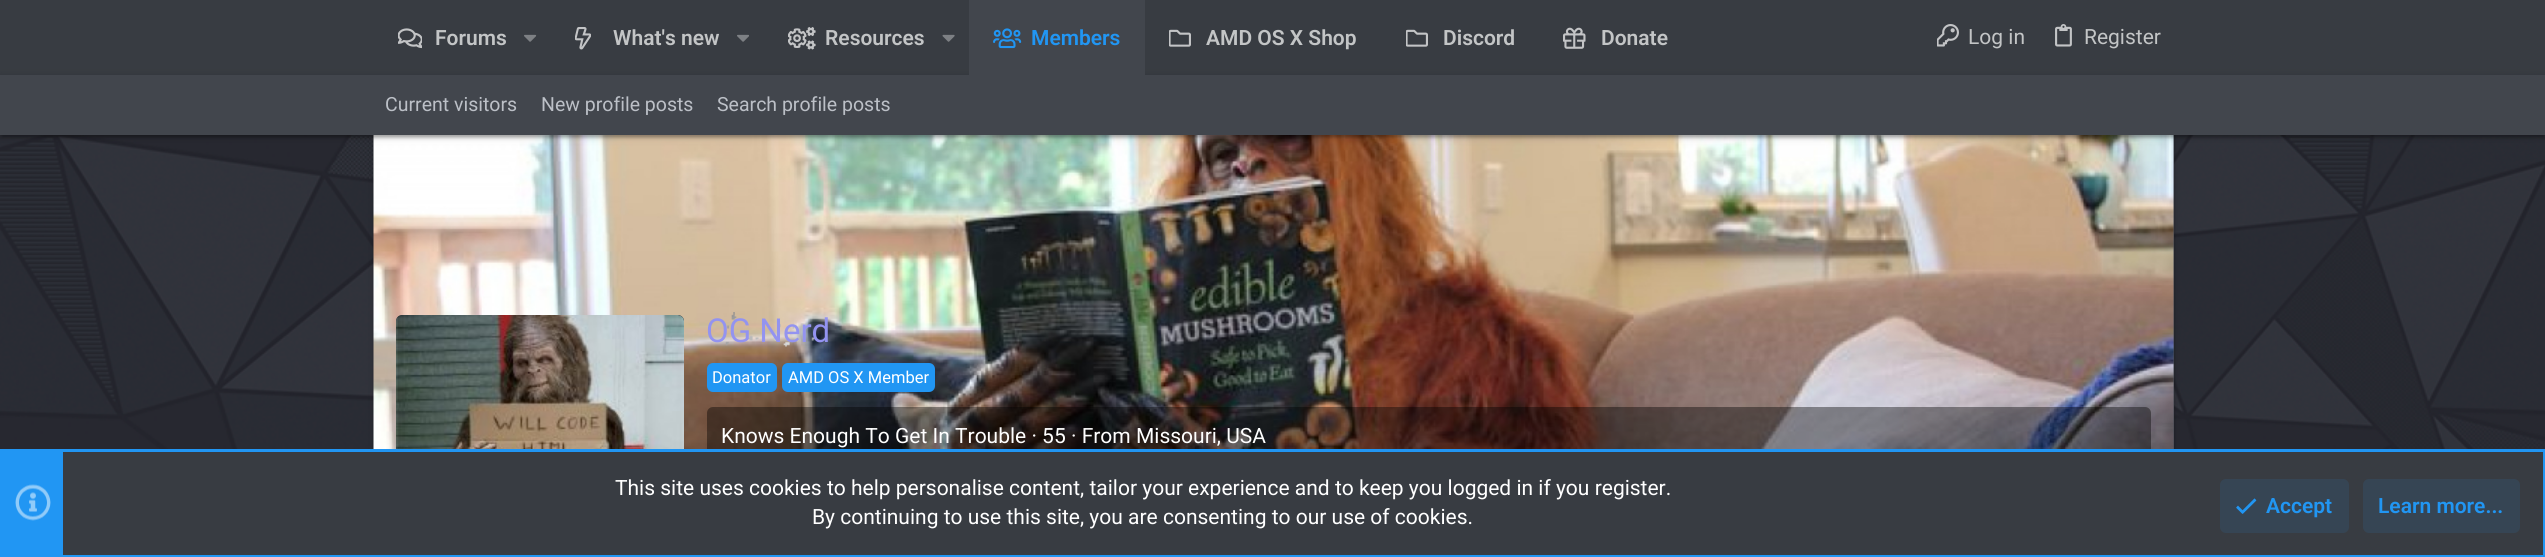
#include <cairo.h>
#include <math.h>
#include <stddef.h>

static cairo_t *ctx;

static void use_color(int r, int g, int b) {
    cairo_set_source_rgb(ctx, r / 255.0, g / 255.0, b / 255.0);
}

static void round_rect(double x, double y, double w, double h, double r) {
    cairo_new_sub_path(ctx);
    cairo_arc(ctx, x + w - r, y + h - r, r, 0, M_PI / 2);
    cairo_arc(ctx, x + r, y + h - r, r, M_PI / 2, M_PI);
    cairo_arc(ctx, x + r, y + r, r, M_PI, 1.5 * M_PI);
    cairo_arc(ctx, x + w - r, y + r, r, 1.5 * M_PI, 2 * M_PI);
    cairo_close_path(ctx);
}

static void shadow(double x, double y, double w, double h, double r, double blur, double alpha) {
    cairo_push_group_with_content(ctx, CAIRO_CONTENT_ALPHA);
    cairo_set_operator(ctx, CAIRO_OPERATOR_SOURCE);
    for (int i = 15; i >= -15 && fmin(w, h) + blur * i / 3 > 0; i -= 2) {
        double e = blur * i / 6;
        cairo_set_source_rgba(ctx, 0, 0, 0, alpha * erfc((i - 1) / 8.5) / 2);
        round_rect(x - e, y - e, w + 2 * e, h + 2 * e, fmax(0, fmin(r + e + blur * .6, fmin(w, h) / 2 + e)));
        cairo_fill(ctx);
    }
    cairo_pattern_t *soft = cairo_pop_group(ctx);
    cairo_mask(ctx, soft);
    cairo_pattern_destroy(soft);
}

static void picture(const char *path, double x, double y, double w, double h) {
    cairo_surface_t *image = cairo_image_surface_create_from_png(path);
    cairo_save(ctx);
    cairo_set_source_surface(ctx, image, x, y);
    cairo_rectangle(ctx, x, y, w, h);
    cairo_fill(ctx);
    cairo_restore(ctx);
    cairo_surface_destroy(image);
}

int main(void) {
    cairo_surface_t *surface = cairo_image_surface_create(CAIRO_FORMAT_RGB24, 2545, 557);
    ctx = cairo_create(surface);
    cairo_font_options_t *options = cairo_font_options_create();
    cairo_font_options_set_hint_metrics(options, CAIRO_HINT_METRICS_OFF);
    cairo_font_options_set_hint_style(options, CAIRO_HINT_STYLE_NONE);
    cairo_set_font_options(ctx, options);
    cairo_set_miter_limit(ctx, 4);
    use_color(255, 255, 255);
    cairo_paint(ctx);
    picture("img1.png", 0, 135, 2545, 314);
    use_color(56, 60, 66);
    cairo_rectangle(ctx, 0, 0, 2545, 75);
    cairo_fill(ctx);
    picture("img2.png", 398, 28, 24, 21);
    cairo_select_font_face(ctx, "Roboto SemiBold", CAIRO_FONT_SLANT_NORMAL, CAIRO_FONT_WEIGHT_NORMAL);
    cairo_set_font_size(ctx, 21);
    use_color(195, 197, 198);
    cairo_move_to(ctx, 435, 45);
    cairo_show_text(ctx, "Forums");
    picture("img3.png", 524, 34, 13, 8);
    picture("img4.png", 575, 27, 16, 23);
    cairo_move_to(ctx, 613, 45);
    cairo_show_text(ctx, "What's new");
    picture("img5.png", 737, 34, 12, 8);
    picture("img6.png", 788, 27, 28, 23);
    cairo_move_to(ctx, 825, 45);
    cairo_show_text(ctx, "Resources");
    picture("img7.png", 942, 34, 13, 8);
    use_color(0, 0, 0);
    shadow(374, 116, 1800, 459, 6, 4, 0.2);
    shadow(374, 117, 1800, 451, 6, 1.5, 0.14);
    use_color(72, 77, 86);
    cairo_rectangle(ctx, 2173, 135, 1, 314);
    cairo_fill(ctx);
    picture("img13.png", 373, 135, 1801, 314);
    use_color(0, 0, 0);
    shadow(0, 77, 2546, 60, 0, 4, 0.2);
    shadow(0, 78, 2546, 60, 0, 1.5, 0.14);
    use_color(66, 70, 77);
    cairo_rectangle(ctx, 969, 0, 176, 75);
    cairo_fill(ctx);
    picture("img8.png", 993, 28, 29, 21);
    use_color(33, 150, 243);
    cairo_move_to(ctx, 1031, 45);
    cairo_show_text(ctx, "Members");
    picture("img9.png", 1169, 29, 22, 18);
    use_color(195, 197, 198);
    cairo_move_to(ctx, 1206, 45);
    cairo_show_text(ctx, "AMD OS X Shop");
    picture("img9.png", 1406, 29, 22, 18);
    cairo_move_to(ctx, 1443, 45);
    cairo_show_text(ctx, "Discord");
    picture("img10.png", 1563, 27, 23, 22);
    cairo_move_to(ctx, 1601, 45);
    cairo_show_text(ctx, "Donate");
    picture("img11.png", 1937, 24, 22, 23);
    cairo_select_font_face(ctx, "Roboto", CAIRO_FONT_SLANT_NORMAL, CAIRO_FONT_WEIGHT_NORMAL);
    cairo_move_to(ctx, 1968, 44);
    cairo_show_text(ctx, "Log in");
    picture("img12.png", 2055, 24, 17, 23);
    cairo_move_to(ctx, 2084, 44);
    cairo_show_text(ctx, "Register");
    use_color(0, 0, 0);
    shadow(3, 83, 2540, 54, 0, 1, 0.12);
    use_color(66, 70, 77);
    cairo_rectangle(ctx, 0, 75, 2545, 60);
    cairo_fill(ctx);
    cairo_set_font_size(ctx, 19.5);
    use_color(188, 192, 199);
    cairo_move_to(ctx, 385, 111);
    cairo_show_text(ctx, "Current visitors");
    cairo_move_to(ctx, 541, 111);
    cairo_show_text(ctx, "New profile posts");
    cairo_move_to(ctx, 717, 111);
    cairo_show_text(ctx, "Search profile posts");
    use_color(56, 60, 66);
    round_rect(396, 315, 288, 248, 6);
    cairo_fill(ctx);
    picture("img14.png", 396, 315, 288, 134);
    picture("img15.png", 725, 312, 91, 35);
    cairo_set_font_size(ctx, 33);
    use_color(147, 147, 240);
    cairo_move_to(ctx, 706, 342);
    cairo_show_text(ctx, "OG Nerd");
    use_color(33, 150, 243);
    round_rect(708, 364, 68, 27, 5);
    cairo_fill_preserve(ctx);
    cairo_stroke(ctx);
    cairo_set_font_size(ctx, 16.5);
    use_color(255, 255, 255);
    cairo_move_to(ctx, 712, 383);
    cairo_show_text(ctx, "Donator");
    use_color(33, 150, 243);
    round_rect(783, 364, 151, 27, 5);
    cairo_fill_preserve(ctx);
    cairo_stroke(ctx);
    use_color(255, 255, 255);
    cairo_move_to(ctx, 788, 383);
    cairo_show_text(ctx, "AMD OS X Member");
    cairo_set_source_rgba(ctx, 0, 0, 0, 0.4);
    round_rect(707, 407, 1444, 60, 6);
    cairo_fill(ctx);
    cairo_set_font_size(ctx, 21);
    use_color(255, 255, 255);
    cairo_move_to(ctx, 721, 443);
    cairo_show_text(ctx, "Knows Enough To Get In Trouble · 55 · From Missouri, USA");
    use_color(56, 60, 66);
    cairo_rectangle(ctx, 63, 452, 2480, 103);
    cairo_fill(ctx);
    cairo_rectangle(ctx, 1.5, 450.5, 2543, 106);
    use_color(33, 150, 243);
    cairo_set_line_width(ctx, 3);
    cairo_stroke(ctx);
    cairo_rectangle(ctx, 3, 452, 60, 103);
    cairo_fill(ctx);
    picture("img16.png", 15, 484, 36, 37);
    use_color(255, 255, 255);
    cairo_move_to(ctx, 615, 495);
    cairo_show_text(ctx, "This site uses cookies to help personalise content, tailor your experience and to keep you logged in if you register.");
    cairo_move_to(ctx, 812, 524);
    cairo_show_text(ctx, "By continuing to use this site, you are consenting to our use of cookies.");
    use_color(54, 69, 84);
    round_rect(2220, 479, 129, 54, 6);
    cairo_fill(ctx);
    picture("img17.png", 2236, 498, 21, 16);
    cairo_select_font_face(ctx, "Roboto SemiBold", CAIRO_FONT_SLANT_NORMAL, CAIRO_FONT_WEIGHT_NORMAL);
    use_color(33, 150, 243);
    cairo_move_to(ctx, 2266, 513);
    cairo_show_text(ctx, "Accept");
    use_color(54, 69, 84);
    round_rect(2363, 479, 157, 54, 6);
    cairo_fill(ctx);
    use_color(33, 150, 243);
    cairo_move_to(ctx, 2378, 513);
    cairo_show_text(ctx, "Learn more...");
    cairo_surface_write_to_png(surface, "result.png");
    cairo_font_options_destroy(options);
    cairo_destroy(ctx);
    cairo_surface_destroy(surface);
    return 0;
}
